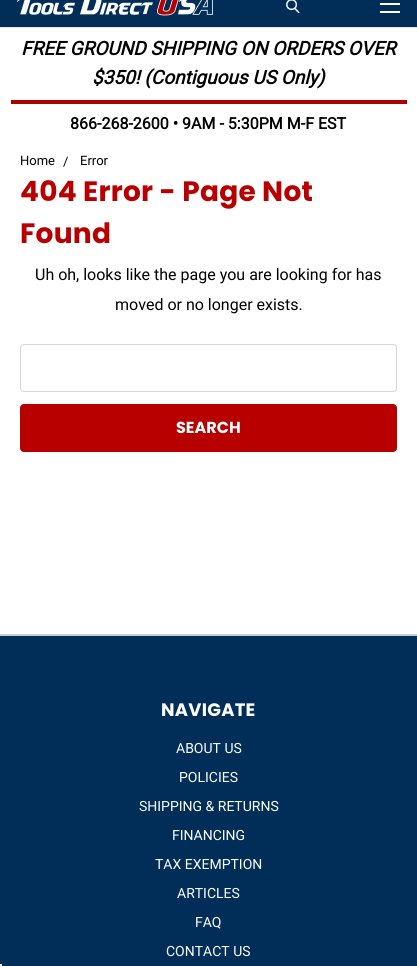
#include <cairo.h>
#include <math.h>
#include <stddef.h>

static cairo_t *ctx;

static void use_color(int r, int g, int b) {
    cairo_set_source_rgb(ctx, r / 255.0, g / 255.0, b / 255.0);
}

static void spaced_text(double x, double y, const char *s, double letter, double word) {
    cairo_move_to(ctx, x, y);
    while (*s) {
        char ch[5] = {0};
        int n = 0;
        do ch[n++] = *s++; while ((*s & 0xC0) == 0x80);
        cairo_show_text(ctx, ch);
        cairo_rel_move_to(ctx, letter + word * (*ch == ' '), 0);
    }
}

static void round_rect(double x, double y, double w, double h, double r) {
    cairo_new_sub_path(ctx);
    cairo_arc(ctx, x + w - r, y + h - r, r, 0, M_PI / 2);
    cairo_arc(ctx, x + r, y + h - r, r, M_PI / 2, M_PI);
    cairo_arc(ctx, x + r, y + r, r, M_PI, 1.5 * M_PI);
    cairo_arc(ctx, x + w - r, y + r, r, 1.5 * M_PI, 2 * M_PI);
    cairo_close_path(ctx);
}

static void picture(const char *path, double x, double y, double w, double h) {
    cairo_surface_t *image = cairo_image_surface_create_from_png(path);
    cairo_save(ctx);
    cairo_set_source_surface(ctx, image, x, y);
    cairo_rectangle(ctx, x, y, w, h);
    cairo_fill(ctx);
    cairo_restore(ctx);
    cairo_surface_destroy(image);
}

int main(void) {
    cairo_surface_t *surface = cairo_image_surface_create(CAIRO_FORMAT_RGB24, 417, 966);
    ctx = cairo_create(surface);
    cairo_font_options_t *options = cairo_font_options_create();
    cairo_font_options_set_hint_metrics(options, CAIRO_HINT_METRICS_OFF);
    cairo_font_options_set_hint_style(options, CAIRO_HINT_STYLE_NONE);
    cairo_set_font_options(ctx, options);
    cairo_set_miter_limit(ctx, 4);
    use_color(255, 255, 255);
    cairo_paint(ctx);
    use_color(0, 46, 89);
    cairo_rectangle(ctx, 0, 0, 417, 27);
    cairo_fill(ctx);
    use_color(229, 229, 229);
    cairo_rectangle(ctx, 0, 27, 417, 1);
    cairo_fill(ctx);
    picture("img1.png", 16, 0, 197, 16);
    picture("img2.png", 286, 0, 14, 14);
    use_color(255, 255, 255);
    cairo_rectangle(ctx, 380, 3, 20, 2);
    cairo_fill(ctx);
    cairo_rectangle(ctx, 380, 11, 20, 2);
    cairo_fill(ctx);
    cairo_select_font_face(ctx, "Roboto", CAIRO_FONT_SLANT_ITALIC, CAIRO_FONT_WEIGHT_BOLD);
    cairo_set_font_size(ctx, 19);
    use_color(0, 0, 0);
    cairo_move_to(ctx, 21, 55);
    cairo_show_text(ctx, "FREE GROUND SHIPPING ON ORDERS OVER");
    cairo_move_to(ctx, 92, 84);
    cairo_show_text(ctx, "$350! (Contiguous US Only)");
    use_color(171, 1, 1);
    cairo_rectangle(ctx, 11, 100, 396, 3);
    cairo_fill(ctx);
    cairo_rectangle(ctx, 406, 100, 1, 4);
    cairo_fill(ctx);
    cairo_rectangle(ctx, 11, 103, 396, 1);
    cairo_fill(ctx);
    cairo_select_font_face(ctx, "Roboto", CAIRO_FONT_SLANT_NORMAL, CAIRO_FONT_WEIGHT_BOLD);
    cairo_set_font_size(ctx, 16);
    use_color(0, 0, 0);
    cairo_move_to(ctx, 70, 129);
    cairo_show_text(ctx, "866-268-2600 • 9AM - 5:30PM M-F EST");
    cairo_select_font_face(ctx, "Roboto", CAIRO_FONT_SLANT_NORMAL, CAIRO_FONT_WEIGHT_NORMAL);
    cairo_set_font_size(ctx, 13);
    cairo_move_to(ctx, 20, 165);
    cairo_show_text(ctx, "Home");
    cairo_move_to(ctx, 63, 166);
    cairo_show_text(ctx, "/");
    cairo_move_to(ctx, 80, 165);
    cairo_show_text(ctx, "Error");
    cairo_select_font_face(ctx, "Poppins", CAIRO_FONT_SLANT_NORMAL, CAIRO_FONT_WEIGHT_BOLD);
    cairo_set_font_size(ctx, 28);
    use_color(185, 0, 0);
    spaced_text(20, 201, "404 Error - Page Not", 0.25, 0);
    spaced_text(20, 243, "Found", 0.25, 0);
    cairo_select_font_face(ctx, "Roboto", CAIRO_FONT_SLANT_NORMAL, CAIRO_FONT_WEIGHT_NORMAL);
    cairo_set_font_size(ctx, 16);
    use_color(0, 0, 0);
    cairo_move_to(ctx, 35, 280);
    cairo_show_text(ctx, "Uh oh, looks like the page you are looking for has");
    cairo_move_to(ctx, 115, 310);
    cairo_show_text(ctx, "moved or no longer exists.");
    round_rect(20.5, 344.5, 376, 47, 3.5);
    use_color(215, 215, 215);
    cairo_set_line_width(ctx, 1);
    cairo_stroke(ctx);
    use_color(185, 0, 0);
    round_rect(20.5, 404.5, 376, 47, 3.5);
    cairo_fill_preserve(ctx);
    cairo_stroke(ctx);
    cairo_select_font_face(ctx, "Poppins", CAIRO_FONT_SLANT_NORMAL, CAIRO_FONT_WEIGHT_BOLD);
    use_color(255, 255, 255);
    cairo_move_to(ctx, 176, 433);
    cairo_show_text(ctx, "SEARCH");
    use_color(0, 46, 89);
    cairo_rectangle(ctx, 0, 636, 417, 330);
    cairo_fill(ctx);
    use_color(205, 204, 204);
    cairo_rectangle(ctx, 0, 634, 417, 2);
    cairo_fill(ctx);
    cairo_set_font_size(ctx, 18);
    use_color(255, 255, 255);
    spaced_text(161, 716, "NAVIGATE", 0.25, 0);
    cairo_select_font_face(ctx, "Roboto", CAIRO_FONT_SLANT_NORMAL, CAIRO_FONT_WEIGHT_NORMAL);
    cairo_set_font_size(ctx, 14);
    cairo_move_to(ctx, 176, 753);
    cairo_show_text(ctx, "ABOUT US");
    cairo_move_to(ctx, 179, 782);
    cairo_show_text(ctx, "POLICIES");
    cairo_move_to(ctx, 139, 811);
    cairo_show_text(ctx, "SHIPPING & RETURNS");
    cairo_move_to(ctx, 172, 840);
    cairo_show_text(ctx, "FINANCING");
    cairo_move_to(ctx, 155, 869);
    cairo_show_text(ctx, "TAX EXEMPTION");
    cairo_move_to(ctx, 177, 898);
    cairo_show_text(ctx, "ARTICLES");
    cairo_move_to(ctx, 195, 927);
    cairo_show_text(ctx, "FAQ");
    cairo_move_to(ctx, 166, 956);
    cairo_show_text(ctx, "CONTACT US");
    use_color(245, 245, 245);
    cairo_rectangle(ctx, 0, 964, 2, 2);
    cairo_fill(ctx);
    cairo_surface_write_to_png(surface, "result.png");
    cairo_font_options_destroy(options);
    cairo_destroy(ctx);
    cairo_surface_destroy(surface);
    return 0;
}
